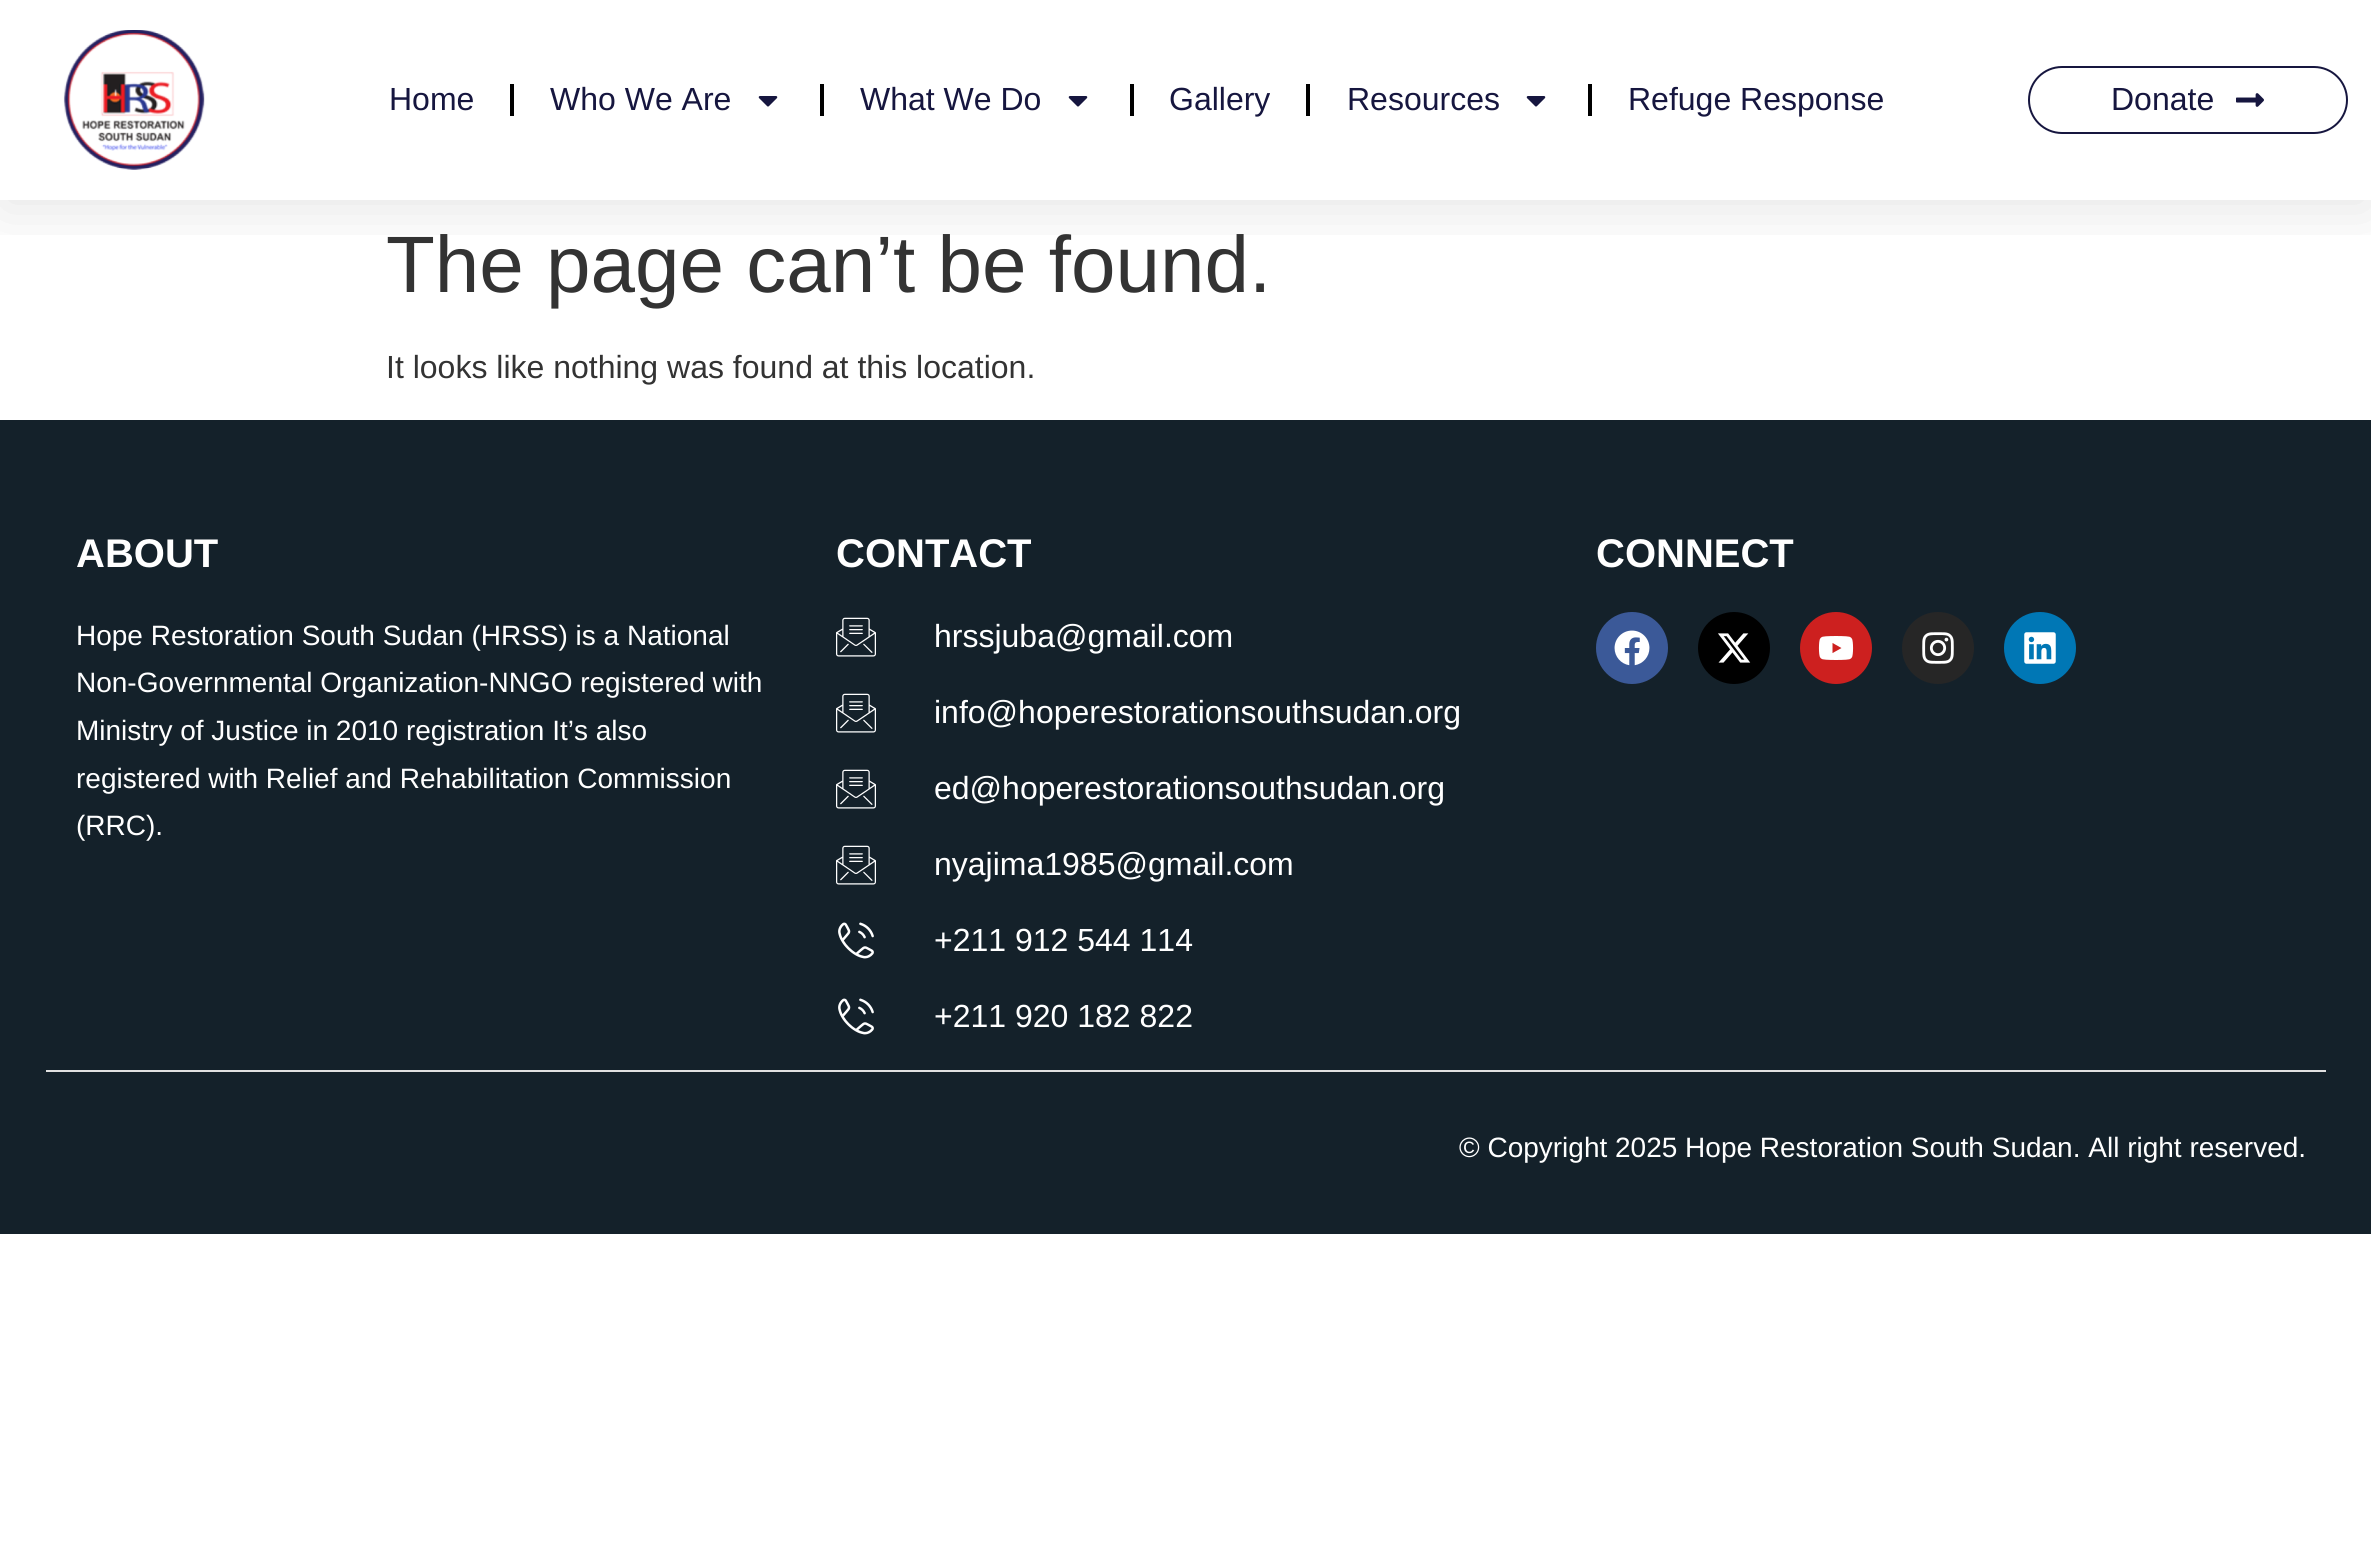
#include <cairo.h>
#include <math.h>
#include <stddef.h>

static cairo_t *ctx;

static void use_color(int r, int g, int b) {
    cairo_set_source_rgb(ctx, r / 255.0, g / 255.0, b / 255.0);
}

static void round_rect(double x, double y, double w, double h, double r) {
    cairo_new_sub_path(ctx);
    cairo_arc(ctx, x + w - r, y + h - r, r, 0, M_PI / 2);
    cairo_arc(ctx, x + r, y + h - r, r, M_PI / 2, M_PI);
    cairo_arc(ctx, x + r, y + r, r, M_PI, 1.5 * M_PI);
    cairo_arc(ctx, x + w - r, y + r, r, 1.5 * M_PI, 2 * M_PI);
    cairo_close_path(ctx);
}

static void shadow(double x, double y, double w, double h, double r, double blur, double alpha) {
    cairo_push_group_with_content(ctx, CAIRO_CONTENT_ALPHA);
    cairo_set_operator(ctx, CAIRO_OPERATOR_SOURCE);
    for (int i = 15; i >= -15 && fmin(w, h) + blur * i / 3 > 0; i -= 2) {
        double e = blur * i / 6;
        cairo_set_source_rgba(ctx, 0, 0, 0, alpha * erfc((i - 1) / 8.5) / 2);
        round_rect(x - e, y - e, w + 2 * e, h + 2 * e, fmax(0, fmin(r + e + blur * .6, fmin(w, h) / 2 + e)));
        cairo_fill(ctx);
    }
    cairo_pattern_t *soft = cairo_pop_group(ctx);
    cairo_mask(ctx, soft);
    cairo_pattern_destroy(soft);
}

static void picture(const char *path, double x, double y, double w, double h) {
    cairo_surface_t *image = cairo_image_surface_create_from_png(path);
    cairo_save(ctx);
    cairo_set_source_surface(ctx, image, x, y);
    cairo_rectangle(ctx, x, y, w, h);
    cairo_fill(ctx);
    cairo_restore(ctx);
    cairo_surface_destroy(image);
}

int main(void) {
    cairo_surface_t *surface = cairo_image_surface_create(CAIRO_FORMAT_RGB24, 2371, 1543);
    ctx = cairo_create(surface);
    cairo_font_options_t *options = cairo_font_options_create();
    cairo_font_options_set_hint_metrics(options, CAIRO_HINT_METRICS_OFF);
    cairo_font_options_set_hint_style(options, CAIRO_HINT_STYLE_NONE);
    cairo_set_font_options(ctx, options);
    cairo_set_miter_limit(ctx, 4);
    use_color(255, 255, 255);
    cairo_paint(ctx);
    cairo_save(ctx);
    cairo_rectangle(ctx, 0, 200, 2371, 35);
    cairo_clip(ctx);
    use_color(0, 0, 0);
    shadow(0, 10, 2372, 200, 0, 30, 0.1);
    cairo_restore(ctx);
    picture("img1.png", 63, 30, 142, 140);
    cairo_select_font_face(ctx, "Liberation Sans", CAIRO_FONT_SLANT_NORMAL, CAIRO_FONT_WEIGHT_NORMAL);
    cairo_set_font_size(ctx, 32);
    use_color(22, 22, 63);
    cairo_move_to(ctx, 389, 110);
    cairo_show_text(ctx, "Home");
    use_color(0, 0, 0);
    cairo_rectangle(ctx, 510, 84, 4, 32);
    cairo_fill(ctx);
    use_color(22, 22, 63);
    cairo_move_to(ctx, 550, 110);
    cairo_show_text(ctx, "Who We Are");
    picture("img2.png", 758, 96, 20, 11);
    use_color(0, 0, 0);
    cairo_rectangle(ctx, 820, 84, 4, 32);
    cairo_fill(ctx);
    use_color(22, 22, 63);
    cairo_move_to(ctx, 860, 110);
    cairo_show_text(ctx, "What We Do");
    picture("img2.png", 1068, 96, 20, 11);
    use_color(0, 0, 0);
    cairo_rectangle(ctx, 1130, 84, 4, 32);
    cairo_fill(ctx);
    use_color(22, 22, 63);
    cairo_move_to(ctx, 1169, 110);
    cairo_show_text(ctx, "Gallery");
    use_color(0, 0, 0);
    cairo_rectangle(ctx, 1306, 84, 4, 32);
    cairo_fill(ctx);
    use_color(22, 22, 63);
    cairo_move_to(ctx, 1347, 110);
    cairo_show_text(ctx, "Resources");
    picture("img2.png", 1526, 96, 20, 11);
    use_color(0, 0, 0);
    cairo_rectangle(ctx, 1588, 84, 4, 32);
    cairo_fill(ctx);
    use_color(22, 22, 63);
    cairo_move_to(ctx, 1628, 110);
    cairo_show_text(ctx, "Refuge Response");
    round_rect(2029, 67, 318, 66, 33);
    cairo_stroke(ctx);
    cairo_move_to(ctx, 2111, 110);
    cairo_show_text(ctx, "Donate");
    picture("img3.png", 2236, 93, 28, 14);
    cairo_set_font_size(ctx, 80);
    use_color(51, 51, 51);
    cairo_move_to(ctx, 386, 292);
    cairo_show_text(ctx, "The page can’t be found.");
    cairo_set_font_size(ctx, 32);
    cairo_move_to(ctx, 386, 378);
    cairo_show_text(ctx, "It looks like nothing was found at this location.");
    use_color(20, 33, 42);
    cairo_rectangle(ctx, 0, 420, 2371, 814);
    cairo_fill(ctx);
    cairo_select_font_face(ctx, "Liberation Sans", CAIRO_FONT_SLANT_NORMAL, CAIRO_FONT_WEIGHT_BOLD);
    cairo_set_font_size(ctx, 40);
    use_color(255, 255, 255);
    cairo_move_to(ctx, 76, 567);
    cairo_show_text(ctx, "ABOUT");
    cairo_select_font_face(ctx, "Liberation Sans", CAIRO_FONT_SLANT_NORMAL, CAIRO_FONT_WEIGHT_NORMAL);
    cairo_set_font_size(ctx, 28);
    cairo_move_to(ctx, 76, 645);
    cairo_show_text(ctx, "Hope Restoration South Sudan (HRSS) is a National");
    cairo_move_to(ctx, 76, 692);
    cairo_show_text(ctx, "Non-Governmental Organization-NNGO registered with");
    cairo_move_to(ctx, 76, 740);
    cairo_show_text(ctx, "Ministry of Justice in 2010 registration It’s also");
    cairo_move_to(ctx, 76, 788);
    cairo_show_text(ctx, "registered with Relief and Rehabilitation Commission");
    cairo_move_to(ctx, 76, 835);
    cairo_show_text(ctx, "(RRC).");
    cairo_select_font_face(ctx, "Liberation Sans", CAIRO_FONT_SLANT_NORMAL, CAIRO_FONT_WEIGHT_BOLD);
    cairo_set_font_size(ctx, 40);
    cairo_move_to(ctx, 836, 567);
    cairo_show_text(ctx, "CONTACT");
    picture("img4.png", 836, 617, 40, 40);
    cairo_select_font_face(ctx, "Liberation Sans", CAIRO_FONT_SLANT_NORMAL, CAIRO_FONT_WEIGHT_NORMAL);
    cairo_set_font_size(ctx, 32);
    cairo_move_to(ctx, 934, 647);
    cairo_show_text(ctx, "hrssjuba@gmail.com");
    picture("img4.png", 836, 693, 40, 40);
    cairo_move_to(ctx, 934, 723);
    cairo_show_text(ctx, "info@hoperestorationsouthsudan.org");
    picture("img4.png", 836, 769, 40, 40);
    cairo_move_to(ctx, 934, 799);
    cairo_show_text(ctx, "ed@hoperestorationsouthsudan.org");
    picture("img4.png", 836, 845, 40, 40);
    cairo_move_to(ctx, 934, 875);
    cairo_show_text(ctx, "nyajima1985@gmail.com");
    picture("img5.png", 838, 922, 36, 37);
    cairo_move_to(ctx, 934, 951);
    cairo_show_text(ctx, "+211 912 544 114");
    picture("img5.png", 838, 998, 36, 37);
    cairo_move_to(ctx, 934, 1027);
    cairo_show_text(ctx, "+211 920 182 822");
    cairo_select_font_face(ctx, "Liberation Sans", CAIRO_FONT_SLANT_NORMAL, CAIRO_FONT_WEIGHT_BOLD);
    cairo_set_font_size(ctx, 40);
    cairo_move_to(ctx, 1596, 567);
    cairo_show_text(ctx, "CONNECT");
    use_color(59, 89, 152);
    cairo_new_path(ctx);
    cairo_arc(ctx, 1632, 648, 36, 0, 2 * M_PI);
    cairo_fill(ctx);
    picture("img6.png", 1614, 630, 36, 36);
    use_color(0, 0, 0);
    cairo_arc(ctx, 1734, 648, 36, 0, 2 * M_PI);
    cairo_fill(ctx);
    picture("img7.png", 1718, 633, 33, 30);
    use_color(205, 32, 31);
    cairo_arc(ctx, 1836, 648, 36, 0, 2 * M_PI);
    cairo_fill(ctx);
    picture("img8.png", 1818, 636, 36, 24);
    use_color(38, 38, 38);
    cairo_arc(ctx, 1938, 648, 36, 0, 2 * M_PI);
    cairo_fill(ctx);
    picture("img9.png", 1922, 632, 32, 32);
    use_color(0, 119, 181);
    cairo_arc(ctx, 2040, 648, 36, 0, 2 * M_PI);
    cairo_fill(ctx);
    picture("img10.png", 2024, 632, 32, 32);
    use_color(225, 225, 225);
    cairo_rectangle(ctx, 46, 1070, 2280, 2);
    cairo_fill(ctx);
    cairo_select_font_face(ctx, "Liberation Sans", CAIRO_FONT_SLANT_NORMAL, CAIRO_FONT_WEIGHT_NORMAL);
    cairo_set_font_size(ctx, 28);
    use_color(255, 255, 255);
    cairo_move_to(ctx, 1459, 1157);
    cairo_show_text(ctx, "© Copyright 2025 Hope Restoration South Sudan. All right reserved.");
    cairo_surface_write_to_png(surface, "result.png");
    cairo_font_options_destroy(options);
    cairo_destroy(ctx);
    cairo_surface_destroy(surface);
    return 0;
}
